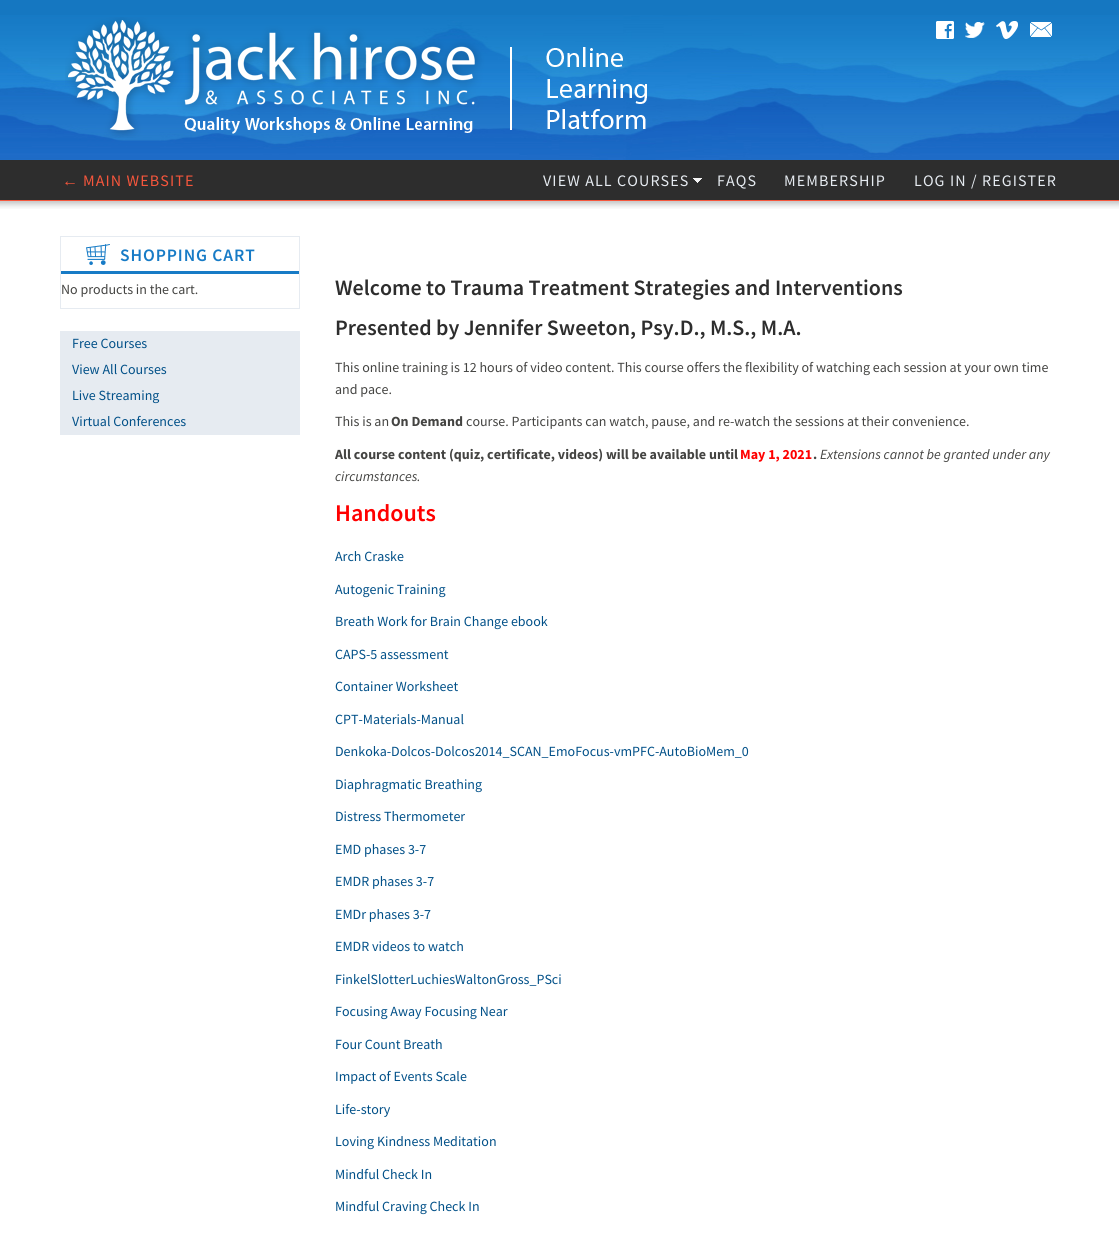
#include <cairo.h>
#include <math.h>
#include <stddef.h>

static cairo_t *ctx;

static void use_color(int r, int g, int b) {
    cairo_set_source_rgb(ctx, r / 255.0, g / 255.0, b / 255.0);
}

static void spaced_text(double x, double y, const char *s, double letter, double word) {
    cairo_move_to(ctx, x, y);
    while (*s) {
        char ch[5] = {0};
        int n = 0;
        do ch[n++] = *s++; while ((*s & 0xC0) == 0x80);
        cairo_show_text(ctx, ch);
        cairo_rel_move_to(ctx, letter + word * (*ch == ' '), 0);
    }
}

static void picture(const char *path, double x, double y, double w, double h) {
    cairo_surface_t *image = cairo_image_surface_create_from_png(path);
    cairo_save(ctx);
    cairo_set_source_surface(ctx, image, x, y);
    cairo_rectangle(ctx, x, y, w, h);
    cairo_fill(ctx);
    cairo_restore(ctx);
    cairo_surface_destroy(image);
}

int main(void) {
    cairo_surface_t *surface = cairo_image_surface_create(CAIRO_FORMAT_RGB24, 1119, 1240);
    ctx = cairo_create(surface);
    cairo_font_options_t *options = cairo_font_options_create();
    cairo_font_options_set_hint_metrics(options, CAIRO_HINT_METRICS_OFF);
    cairo_font_options_set_hint_style(options, CAIRO_HINT_STYLE_NONE);
    cairo_set_font_options(ctx, options);
    cairo_set_miter_limit(ctx, 4);
    use_color(21, 119, 193);
    cairo_paint(ctx);
    picture("img1.png", 0, 15, 1119, 145);
    picture("img2.png", 65, 17, 582, 121);
    picture("img3.png", 936, 21, 18, 18);
    picture("img4.png", 965, 22, 20, 16);
    picture("img5.png", 996, 21, 22, 18);
    picture("img6.png", 1030, 22, 22, 15);
    use_color(45, 45, 45);
    cairo_rectangle(ctx, 0, 160, 1119, 40);
    cairo_fill(ctx);
    use_color(246, 86, 60);
    cairo_rectangle(ctx, 0, 200, 1119, 1);
    cairo_fill(ctx);
    cairo_select_font_face(ctx, "Liberation Sans", CAIRO_FONT_SLANT_NORMAL, CAIRO_FONT_WEIGHT_NORMAL);
    cairo_set_font_size(ctx, 16);
    spaced_text(62, 186, "←", 1.1, 0);
    cairo_select_font_face(ctx, "Source Sans Pro", CAIRO_FONT_SLANT_NORMAL, CAIRO_FONT_WEIGHT_NORMAL);
    spaced_text(83, 186, "MAIN WEBSITE", 1.1, 0);
    picture("img7.png", 693, 178, 9, 5);
    use_color(230, 235, 241);
    spaced_text(543, 186, "VIEW ALL COURSES", 1.1, 0);
    spaced_text(717, 186, "FAQS", 1.1, 0);
    spaced_text(784, 186, "MEMBERSHIP", 1.1, 0);
    spaced_text(914, 186, "LOG IN / REGISTER", 1.1, 0);
    use_color(255, 255, 255);
    cairo_rectangle(ctx, 0, 209, 1119, 1031);
    cairo_fill(ctx);
    picture("img8.png", 0, 201, 1119, 8);
    cairo_rectangle(ctx, 60.5, 236.5, 239, 72);
    use_color(230, 235, 241);
    cairo_set_line_width(ctx, 1);
    cairo_stroke(ctx);
    picture("img9.png", 86, 244, 24, 21);
    use_color(23, 123, 198);
    cairo_rectangle(ctx, 61, 271, 238, 3);
    cairo_fill(ctx);
    cairo_select_font_face(ctx, "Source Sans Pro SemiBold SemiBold", CAIRO_FONT_SLANT_NORMAL, CAIRO_FONT_WEIGHT_NORMAL);
    cairo_set_font_size(ctx, 17.5);
    spaced_text(120, 261, "SHOPPING CART", 0.9, 0);
    cairo_select_font_face(ctx, "Source Sans Pro", CAIRO_FONT_SLANT_NORMAL, CAIRO_FONT_WEIGHT_NORMAL);
    cairo_set_font_size(ctx, 14);
    use_color(68, 68, 66);
    cairo_move_to(ctx, 61, 294);
    cairo_show_text(ctx, "No products in the cart.");
    use_color(230, 235, 241);
    cairo_rectangle(ctx, 60, 331, 240, 104);
    cairo_fill(ctx);
    use_color(1, 80, 136);
    cairo_move_to(ctx, 72, 348);
    cairo_show_text(ctx, "Free Courses");
    cairo_move_to(ctx, 72, 374);
    cairo_show_text(ctx, "View All Courses");
    cairo_move_to(ctx, 72, 400);
    cairo_show_text(ctx, "Live Streaming");
    cairo_move_to(ctx, 72, 426);
    cairo_show_text(ctx, "Virtual Conferences");
    cairo_select_font_face(ctx, "Source Sans Pro SemiBold SemiBold", CAIRO_FONT_SLANT_NORMAL, CAIRO_FONT_WEIGHT_NORMAL);
    cairo_set_font_size(ctx, 22);
    use_color(45, 45, 45);
    cairo_move_to(ctx, 335, 295);
    cairo_show_text(ctx, "Welcome to Trauma Treatment Strategies and Interventions");
    cairo_move_to(ctx, 335, 335);
    cairo_show_text(ctx, "Presented by Jennifer Sweeton, Psy.D., M.S., M.A.");
    cairo_select_font_face(ctx, "Source Sans Pro", CAIRO_FONT_SLANT_NORMAL, CAIRO_FONT_WEIGHT_NORMAL);
    cairo_set_font_size(ctx, 14);
    use_color(68, 68, 66);
    cairo_move_to(ctx, 335, 372);
    cairo_show_text(ctx, "This online training is 12 hours of video content. This course offers the flexibility of watching each session at your own time");
    cairo_move_to(ctx, 335, 394);
    cairo_show_text(ctx, "and pace.");
    cairo_move_to(ctx, 335, 426);
    cairo_show_text(ctx, "This is an");
    cairo_select_font_face(ctx, "Source Sans Pro", CAIRO_FONT_SLANT_NORMAL, CAIRO_FONT_WEIGHT_BOLD);
    cairo_move_to(ctx, 391, 426);
    cairo_show_text(ctx, "On Demand");
    cairo_select_font_face(ctx, "Source Sans Pro", CAIRO_FONT_SLANT_NORMAL, CAIRO_FONT_WEIGHT_NORMAL);
    cairo_move_to(ctx, 466, 426);
    cairo_show_text(ctx, "course. Participants can watch, pause, and re-watch the sessions at their convenience.");
    cairo_select_font_face(ctx, "Source Sans Pro", CAIRO_FONT_SLANT_NORMAL, CAIRO_FONT_WEIGHT_BOLD);
    cairo_move_to(ctx, 335, 459);
    cairo_show_text(ctx, "All course content (quiz, certificate, videos) will be available until");
    use_color(255, 0, 0);
    cairo_move_to(ctx, 740, 459);
    cairo_show_text(ctx, "May 1, 2021");
    use_color(68, 68, 66);
    cairo_move_to(ctx, 813, 459);
    cairo_show_text(ctx, ".");
    cairo_select_font_face(ctx, "Source Sans Pro", CAIRO_FONT_SLANT_ITALIC, CAIRO_FONT_WEIGHT_NORMAL);
    cairo_move_to(ctx, 820, 459);
    cairo_show_text(ctx, "Extensions cannot be granted under any");
    cairo_move_to(ctx, 335, 481);
    cairo_show_text(ctx, "circumstances.");
    cairo_select_font_face(ctx, "Source Sans Pro SemiBold SemiBold", CAIRO_FONT_SLANT_NORMAL, CAIRO_FONT_WEIGHT_NORMAL);
    cairo_set_font_size(ctx, 24);
    use_color(255, 0, 0);
    cairo_move_to(ctx, 335, 521);
    cairo_show_text(ctx, "Handouts");
    cairo_select_font_face(ctx, "Source Sans Pro", CAIRO_FONT_SLANT_NORMAL, CAIRO_FONT_WEIGHT_NORMAL);
    cairo_set_font_size(ctx, 14);
    use_color(1, 80, 136);
    cairo_move_to(ctx, 335, 561);
    cairo_show_text(ctx, "Arch Craske");
    cairo_move_to(ctx, 335, 594);
    cairo_show_text(ctx, "Autogenic Training");
    cairo_move_to(ctx, 335, 626);
    cairo_show_text(ctx, "Breath Work for Brain Change ebook");
    cairo_move_to(ctx, 335, 659);
    cairo_show_text(ctx, "CAPS-5 assessment");
    cairo_move_to(ctx, 335, 691);
    cairo_show_text(ctx, "Container Worksheet");
    cairo_move_to(ctx, 335, 724);
    cairo_show_text(ctx, "CPT-Materials-Manual");
    cairo_move_to(ctx, 335, 756);
    cairo_show_text(ctx, "Denkoka-Dolcos-Dolcos2014_SCAN_EmoFocus-vmPFC-AutoBioMem_0");
    cairo_move_to(ctx, 335, 789);
    cairo_show_text(ctx, "Diaphragmatic Breathing");
    cairo_move_to(ctx, 335, 821);
    cairo_show_text(ctx, "Distress Thermometer");
    cairo_move_to(ctx, 335, 854);
    cairo_show_text(ctx, "EMD phases 3-7");
    cairo_move_to(ctx, 335, 886);
    cairo_show_text(ctx, "EMDR phases 3-7");
    cairo_move_to(ctx, 335, 919);
    cairo_show_text(ctx, "EMDr phases 3-7");
    cairo_move_to(ctx, 335, 951);
    cairo_show_text(ctx, "EMDR videos to watch");
    cairo_move_to(ctx, 335, 984);
    cairo_show_text(ctx, "FinkelSlotterLuchiesWaltonGross_PSci");
    cairo_move_to(ctx, 335, 1016);
    cairo_show_text(ctx, "Focusing Away Focusing Near");
    cairo_move_to(ctx, 335, 1049);
    cairo_show_text(ctx, "Four Count Breath");
    cairo_move_to(ctx, 335, 1081);
    cairo_show_text(ctx, "Impact of Events Scale");
    cairo_move_to(ctx, 335, 1114);
    cairo_show_text(ctx, "Life-story");
    cairo_move_to(ctx, 335, 1146);
    cairo_show_text(ctx, "Loving Kindness Meditation");
    cairo_move_to(ctx, 335, 1179);
    cairo_show_text(ctx, "Mindful Check In");
    cairo_move_to(ctx, 335, 1211);
    cairo_show_text(ctx, "Mindful Craving Check In");
    cairo_surface_write_to_png(surface, "result.png");
    cairo_font_options_destroy(options);
    cairo_destroy(ctx);
    cairo_surface_destroy(surface);
    return 0;
}
